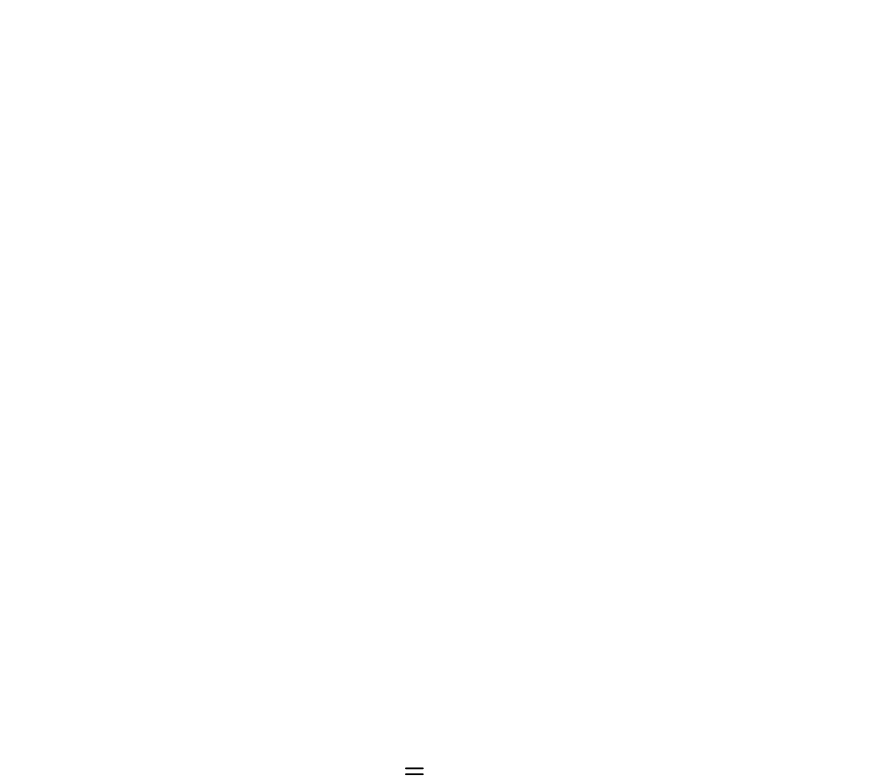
#include <cairo.h>
#include <math.h>
#include <stddef.h>

static cairo_t *ctx;

static void use_color(int r, int g, int b) {
    cairo_set_source_rgb(ctx, r / 255.0, g / 255.0, b / 255.0);
}

static void picture(const char *path, double x, double y, double w, double h) {
    cairo_surface_t *image = cairo_image_surface_create_from_png(path);
    cairo_save(ctx);
    cairo_set_source_surface(ctx, image, x, y);
    cairo_rectangle(ctx, x, y, w, h);
    cairo_fill(ctx);
    cairo_restore(ctx);
    cairo_surface_destroy(image);
}

int main(void) {
    cairo_surface_t *surface = cairo_image_surface_create(CAIRO_FORMAT_RGB24, 879, 777);
    ctx = cairo_create(surface);
    cairo_font_options_t *options = cairo_font_options_create();
    cairo_font_options_set_hint_metrics(options, CAIRO_HINT_METRICS_OFF);
    cairo_font_options_set_hint_style(options, CAIRO_HINT_STYLE_NONE);
    cairo_set_font_options(ctx, options);
    cairo_set_miter_limit(ctx, 4);
    use_color(255, 255, 255);
    cairo_paint(ctx);
    picture("img1.png", 405, 767, 19, 9);
    cairo_surface_write_to_png(surface, "result.png");
    cairo_font_options_destroy(options);
    cairo_destroy(ctx);
    cairo_surface_destroy(surface);
    return 0;
}
